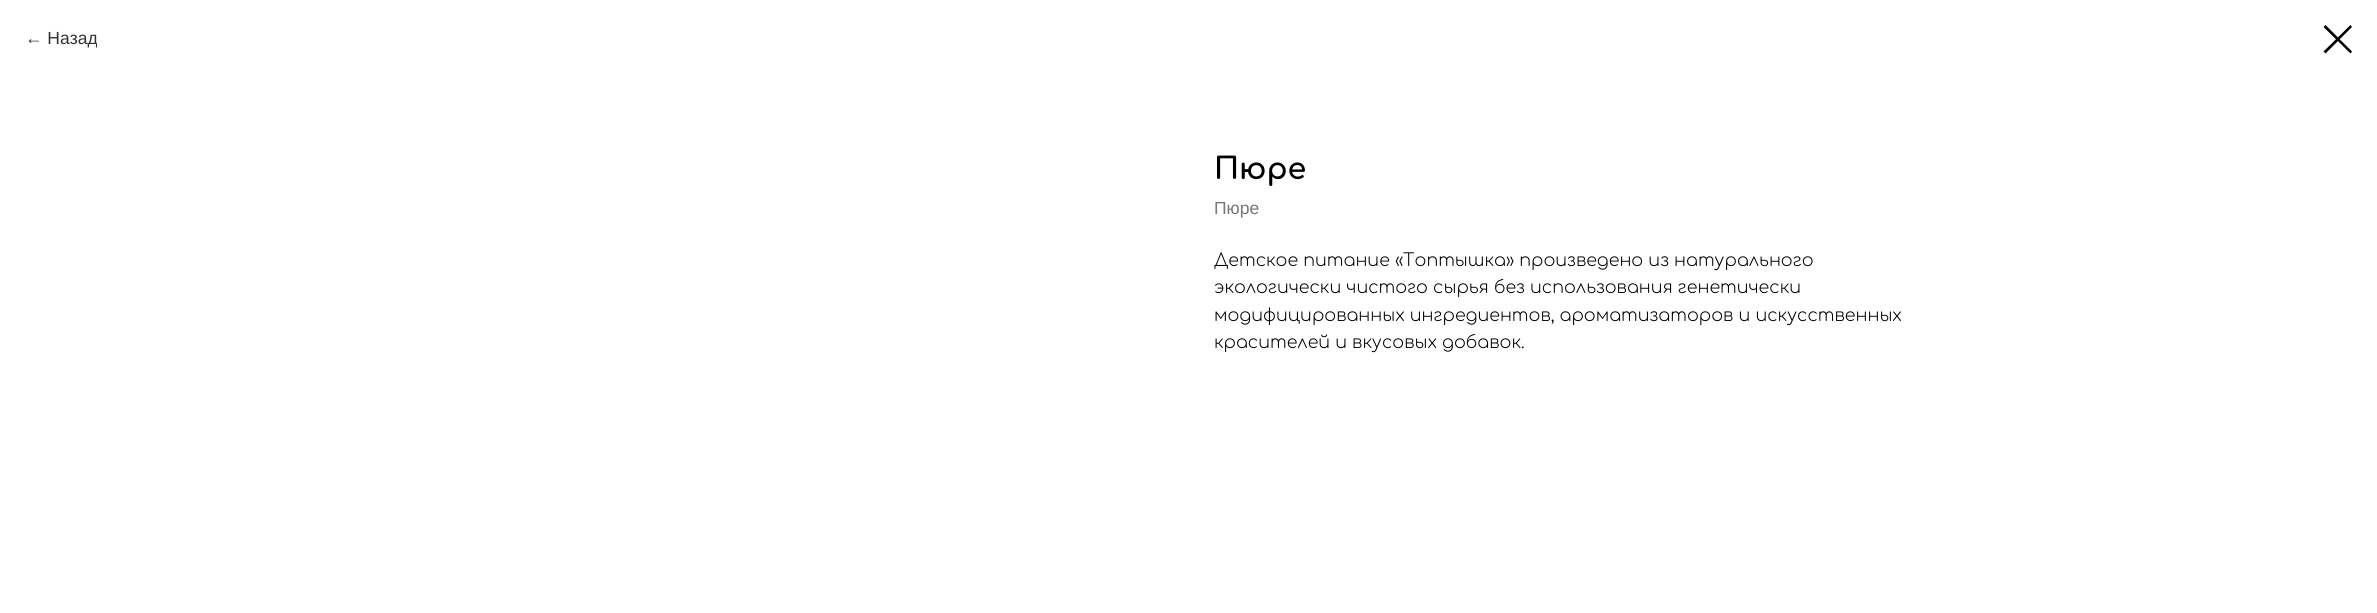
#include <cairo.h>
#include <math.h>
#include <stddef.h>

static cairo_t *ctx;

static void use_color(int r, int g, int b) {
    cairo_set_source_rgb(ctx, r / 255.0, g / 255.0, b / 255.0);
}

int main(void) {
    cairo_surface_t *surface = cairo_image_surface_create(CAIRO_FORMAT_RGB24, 2377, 613);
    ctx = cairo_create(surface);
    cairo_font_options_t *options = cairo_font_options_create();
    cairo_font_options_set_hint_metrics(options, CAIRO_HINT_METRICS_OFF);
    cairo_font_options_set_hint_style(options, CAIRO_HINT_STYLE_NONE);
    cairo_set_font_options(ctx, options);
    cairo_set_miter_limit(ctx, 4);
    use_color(255, 255, 255);
    cairo_paint(ctx);
    cairo_select_font_face(ctx, "Liberation Sans", CAIRO_FONT_SLANT_NORMAL, CAIRO_FONT_WEIGHT_NORMAL);
    cairo_set_font_size(ctx, 17.5);
    use_color(51, 51, 51);
    cairo_move_to(ctx, 25, 44);
    cairo_show_text(ctx, "← Назад");
    use_color(0, 0, 0);
    cairo_set_fill_rule(ctx, CAIRO_FILL_RULE_EVEN_ODD);
    cairo_new_path(ctx);
    cairo_move_to(ctx, 2323.5, 27);
    cairo_line_to(ctx, 2325.5, 25);
    cairo_line_to(ctx, 2352, 51.5);
    cairo_line_to(ctx, 2350.5, 53.5);
    cairo_close_path(ctx);
    cairo_fill(ctx);
    cairo_new_path(ctx);
    cairo_move_to(ctx, 2350.5, 25);
    cairo_line_to(ctx, 2352, 27);
    cairo_line_to(ctx, 2325.5, 53.5);
    cairo_line_to(ctx, 2323.5, 51.5);
    cairo_close_path(ctx);
    cairo_fill(ctx);
    cairo_select_font_face(ctx, "Comfortaa", CAIRO_FONT_SLANT_NORMAL, CAIRO_FONT_WEIGHT_BOLD);
    cairo_set_font_size(ctx, 30);
    cairo_move_to(ctx, 1214, 179);
    cairo_show_text(ctx, "Пюре");
    cairo_select_font_face(ctx, "Liberation Sans", CAIRO_FONT_SLANT_NORMAL, CAIRO_FONT_WEIGHT_NORMAL);
    cairo_set_font_size(ctx, 17.5);
    use_color(119, 119, 119);
    cairo_move_to(ctx, 1214, 214);
    cairo_show_text(ctx, "Пюре");
    cairo_select_font_face(ctx, "Comfortaa Light", CAIRO_FONT_SLANT_NORMAL, CAIRO_FONT_WEIGHT_NORMAL);
    use_color(0, 0, 0);
    cairo_move_to(ctx, 1214, 266);
    cairo_show_text(ctx, "Детское питание «Топтышка» произведено из натурального");
    cairo_move_to(ctx, 1214, 293);
    cairo_show_text(ctx, "экологически чистого сырья без использования генетически");
    cairo_move_to(ctx, 1214, 321);
    cairo_show_text(ctx, "модифицированных ингредиентов, ароматизаторов и искусственных");
    cairo_move_to(ctx, 1214, 348);
    cairo_show_text(ctx, "красителей и вкусовых добавок.");
    cairo_surface_write_to_png(surface, "result.png");
    cairo_font_options_destroy(options);
    cairo_destroy(ctx);
    cairo_surface_destroy(surface);
    return 0;
}
